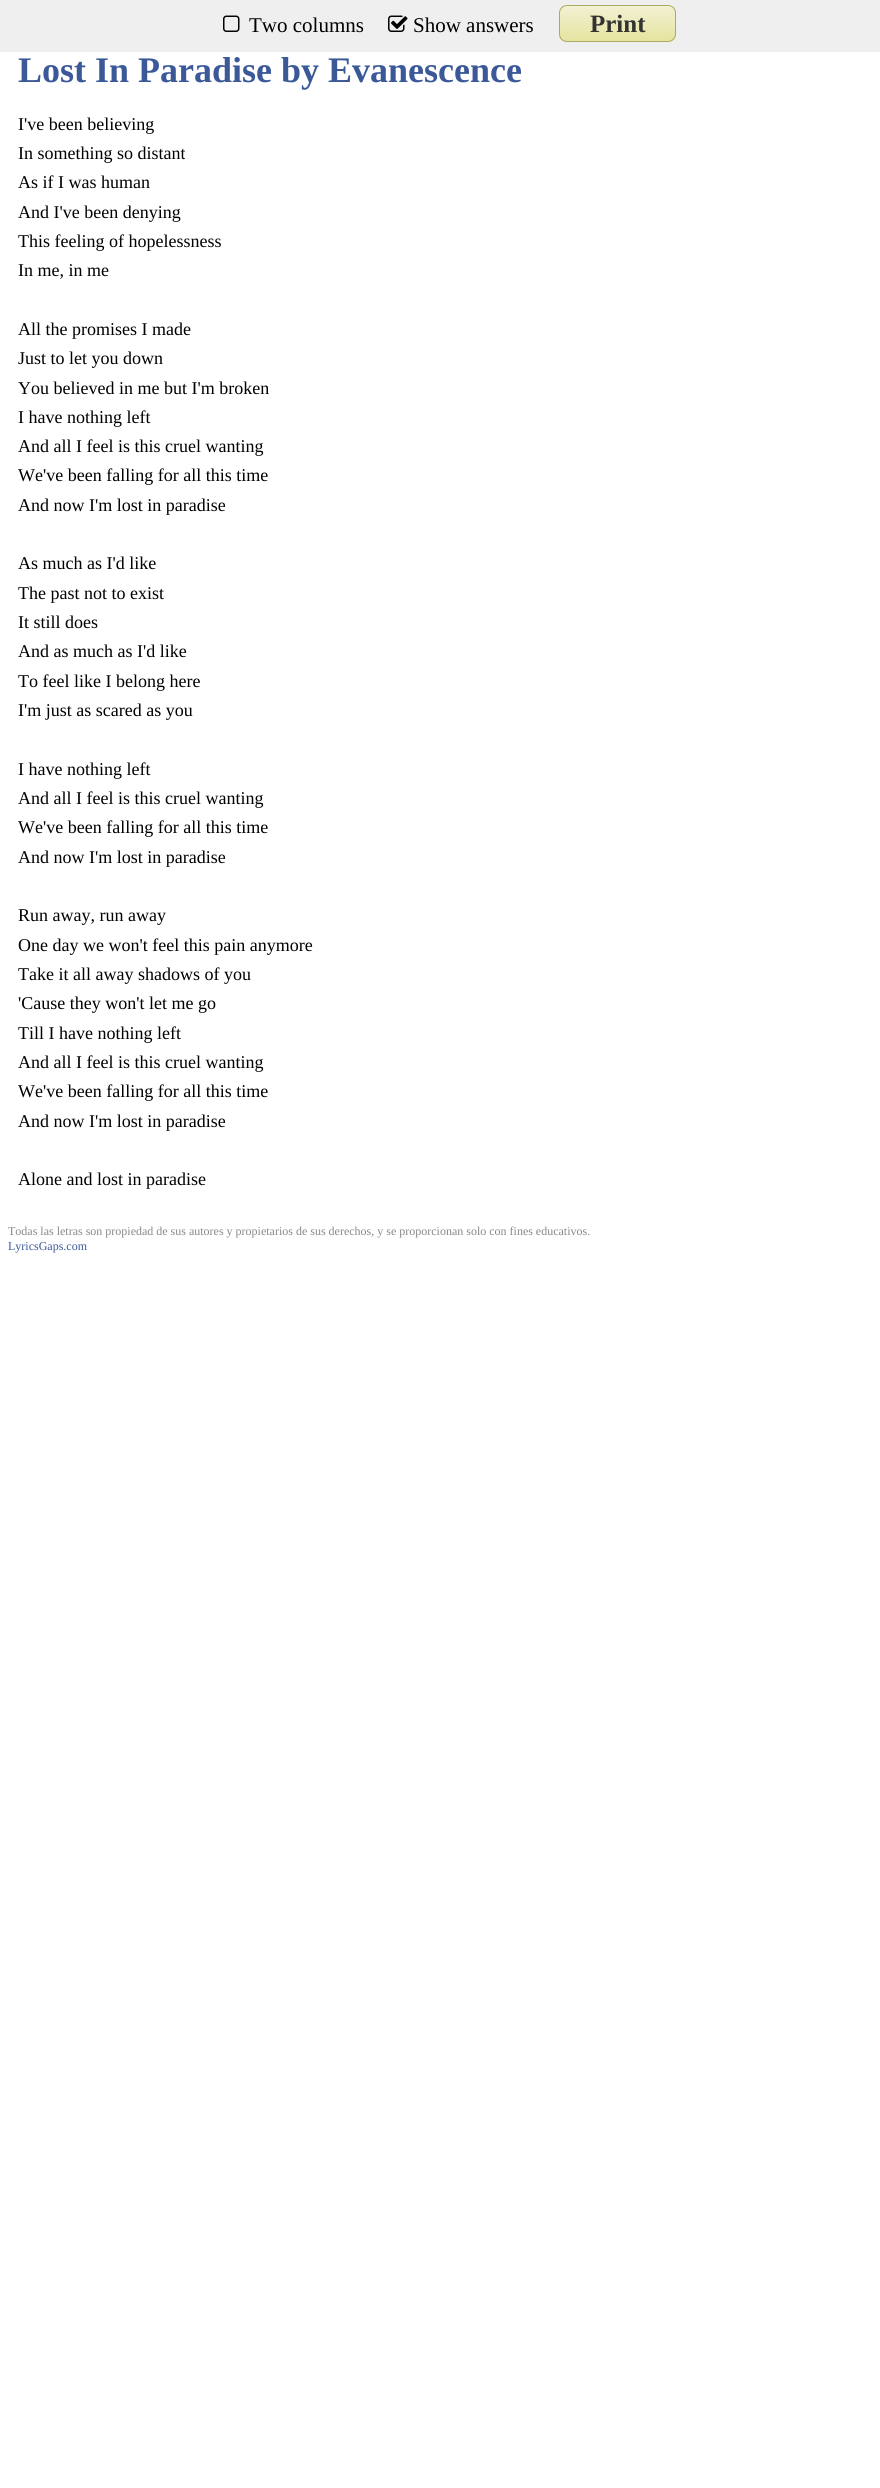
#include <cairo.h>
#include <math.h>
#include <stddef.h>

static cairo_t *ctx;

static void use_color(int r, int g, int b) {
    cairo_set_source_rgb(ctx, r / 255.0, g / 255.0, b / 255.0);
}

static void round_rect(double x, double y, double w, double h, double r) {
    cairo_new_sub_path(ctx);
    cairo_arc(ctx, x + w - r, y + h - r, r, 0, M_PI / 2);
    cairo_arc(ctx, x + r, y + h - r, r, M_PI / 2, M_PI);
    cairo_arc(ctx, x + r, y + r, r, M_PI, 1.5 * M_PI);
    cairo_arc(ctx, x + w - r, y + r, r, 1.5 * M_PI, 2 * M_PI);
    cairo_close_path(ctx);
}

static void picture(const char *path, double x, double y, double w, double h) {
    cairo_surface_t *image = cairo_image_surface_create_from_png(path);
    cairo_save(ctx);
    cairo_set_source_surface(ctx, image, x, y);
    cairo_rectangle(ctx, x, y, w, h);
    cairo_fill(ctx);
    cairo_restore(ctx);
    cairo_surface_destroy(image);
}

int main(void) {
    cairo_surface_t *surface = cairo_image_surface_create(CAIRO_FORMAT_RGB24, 880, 2488);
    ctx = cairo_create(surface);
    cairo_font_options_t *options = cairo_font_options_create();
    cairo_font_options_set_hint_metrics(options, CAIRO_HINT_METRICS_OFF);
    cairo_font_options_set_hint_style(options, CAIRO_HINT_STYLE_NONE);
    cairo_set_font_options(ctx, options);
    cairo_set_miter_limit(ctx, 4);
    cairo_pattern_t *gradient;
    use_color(255, 255, 255);
    cairo_paint(ctx);
    use_color(239, 239, 239);
    cairo_rectangle(ctx, 0, 0, 880, 52);
    cairo_fill(ctx);
    picture("img1.png", 223, 15, 17, 17);
    cairo_select_font_face(ctx, "Liberation Serif", CAIRO_FONT_SLANT_NORMAL, CAIRO_FONT_WEIGHT_NORMAL);
    cairo_set_font_size(ctx, 21);
    use_color(0, 0, 0);
    cairo_move_to(ctx, 249, 32);
    cairo_show_text(ctx, "Two columns");
    picture("img2.png", 388, 15, 20, 17);
    cairo_move_to(ctx, 413, 32);
    cairo_show_text(ctx, "Show answers");
    cairo_save(ctx);
    round_rect(559, 5, 117, 37, 8);
    cairo_clip(ctx);
    gradient = cairo_pattern_create_linear(560, 6, 560, 41);
    cairo_pattern_add_color_stop_rgba(gradient, 0, 0.945, 0.945, 0.831, 1);
    cairo_pattern_add_color_stop_rgba(gradient, 1, 0.902, 0.894, 0.624, 1);
    cairo_set_source(ctx, gradient);
    cairo_pattern_destroy(gradient);
    cairo_rectangle(ctx, 559, 6, 117, 35);
    cairo_fill(ctx);
    cairo_restore(ctx);
    round_rect(559.5, 5.5, 116, 36, 7.5);
    use_color(170, 172, 98);
    cairo_set_line_width(ctx, 1);
    cairo_stroke(ctx);
    cairo_select_font_face(ctx, "Liberation Serif", CAIRO_FONT_SLANT_NORMAL, CAIRO_FONT_WEIGHT_BOLD);
    cairo_set_font_size(ctx, 25);
    use_color(51, 51, 51);
    cairo_move_to(ctx, 590, 32);
    cairo_show_text(ctx, "Print");
    cairo_set_font_size(ctx, 36);
    use_color(59, 89, 152);
    cairo_move_to(ctx, 18, 82);
    cairo_show_text(ctx, "Lost In Paradise by Evanescence");
    cairo_select_font_face(ctx, "Liberation Serif", CAIRO_FONT_SLANT_NORMAL, CAIRO_FONT_WEIGHT_NORMAL);
    cairo_set_font_size(ctx, 18);
    use_color(0, 0, 0);
    cairo_move_to(ctx, 18, 130);
    cairo_show_text(ctx, "I've been believing");
    cairo_move_to(ctx, 18, 159);
    cairo_show_text(ctx, "In something so distant");
    cairo_move_to(ctx, 18, 188);
    cairo_show_text(ctx, "As if I was human");
    cairo_move_to(ctx, 18, 218);
    cairo_show_text(ctx, "And I've been denying");
    cairo_move_to(ctx, 18, 247);
    cairo_show_text(ctx, "This feeling of hopelessness");
    cairo_move_to(ctx, 18, 276);
    cairo_show_text(ctx, "In me, in me");
    cairo_move_to(ctx, 18, 335);
    cairo_show_text(ctx, "All the promises I made");
    cairo_move_to(ctx, 18, 364);
    cairo_show_text(ctx, "Just to let you down");
    cairo_move_to(ctx, 18, 394);
    cairo_show_text(ctx, "You believed in me but I'm broken");
    cairo_move_to(ctx, 18, 423);
    cairo_show_text(ctx, "I have nothing left");
    cairo_move_to(ctx, 18, 452);
    cairo_show_text(ctx, "And all I feel is this cruel wanting");
    cairo_move_to(ctx, 18, 481);
    cairo_show_text(ctx, "We've been falling for all this time");
    cairo_move_to(ctx, 18, 511);
    cairo_show_text(ctx, "And now I'm lost in paradise");
    cairo_move_to(ctx, 18, 569);
    cairo_show_text(ctx, "As much as I'd like");
    cairo_move_to(ctx, 18, 599);
    cairo_show_text(ctx, "The past not to exist");
    cairo_move_to(ctx, 18, 628);
    cairo_show_text(ctx, "It still does");
    cairo_move_to(ctx, 18, 657);
    cairo_show_text(ctx, "And as much as I'd like");
    cairo_move_to(ctx, 18, 687);
    cairo_show_text(ctx, "To feel like I belong here");
    cairo_move_to(ctx, 18, 716);
    cairo_show_text(ctx, "I'm just as scared as you");
    cairo_move_to(ctx, 18, 775);
    cairo_show_text(ctx, "I have nothing left");
    cairo_move_to(ctx, 18, 804);
    cairo_show_text(ctx, "And all I feel is this cruel wanting");
    cairo_move_to(ctx, 18, 833);
    cairo_show_text(ctx, "We've been falling for all this time");
    cairo_move_to(ctx, 18, 863);
    cairo_show_text(ctx, "And now I'm lost in paradise");
    cairo_move_to(ctx, 18, 921);
    cairo_show_text(ctx, "Run away, run away");
    cairo_move_to(ctx, 18, 951);
    cairo_show_text(ctx, "One day we won't feel this pain anymore");
    cairo_move_to(ctx, 18, 980);
    cairo_show_text(ctx, "Take it all away shadows of you");
    cairo_move_to(ctx, 18, 1009);
    cairo_show_text(ctx, "'Cause they won't let me go");
    cairo_move_to(ctx, 18, 1039);
    cairo_show_text(ctx, "Till I have nothing left");
    cairo_move_to(ctx, 18, 1068);
    cairo_show_text(ctx, "And all I feel is this cruel wanting");
    cairo_move_to(ctx, 18, 1097);
    cairo_show_text(ctx, "We've been falling for all this time");
    cairo_move_to(ctx, 18, 1127);
    cairo_show_text(ctx, "And now I'm lost in paradise");
    cairo_move_to(ctx, 18, 1185);
    cairo_show_text(ctx, "Alone and lost in paradise");
    cairo_set_font_size(ctx, 12);
    use_color(136, 136, 136);
    cairo_move_to(ctx, 8, 1235);
    cairo_show_text(ctx, "Todas las letras son propiedad de sus autores y propietarios de sus derechos, y se proporcionan solo con fines educativos.");
    use_color(59, 89, 152);
    cairo_move_to(ctx, 8, 1250);
    cairo_show_text(ctx, "LyricsGaps.com");
    cairo_surface_write_to_png(surface, "result.png");
    cairo_font_options_destroy(options);
    cairo_destroy(ctx);
    cairo_surface_destroy(surface);
    return 0;
}
